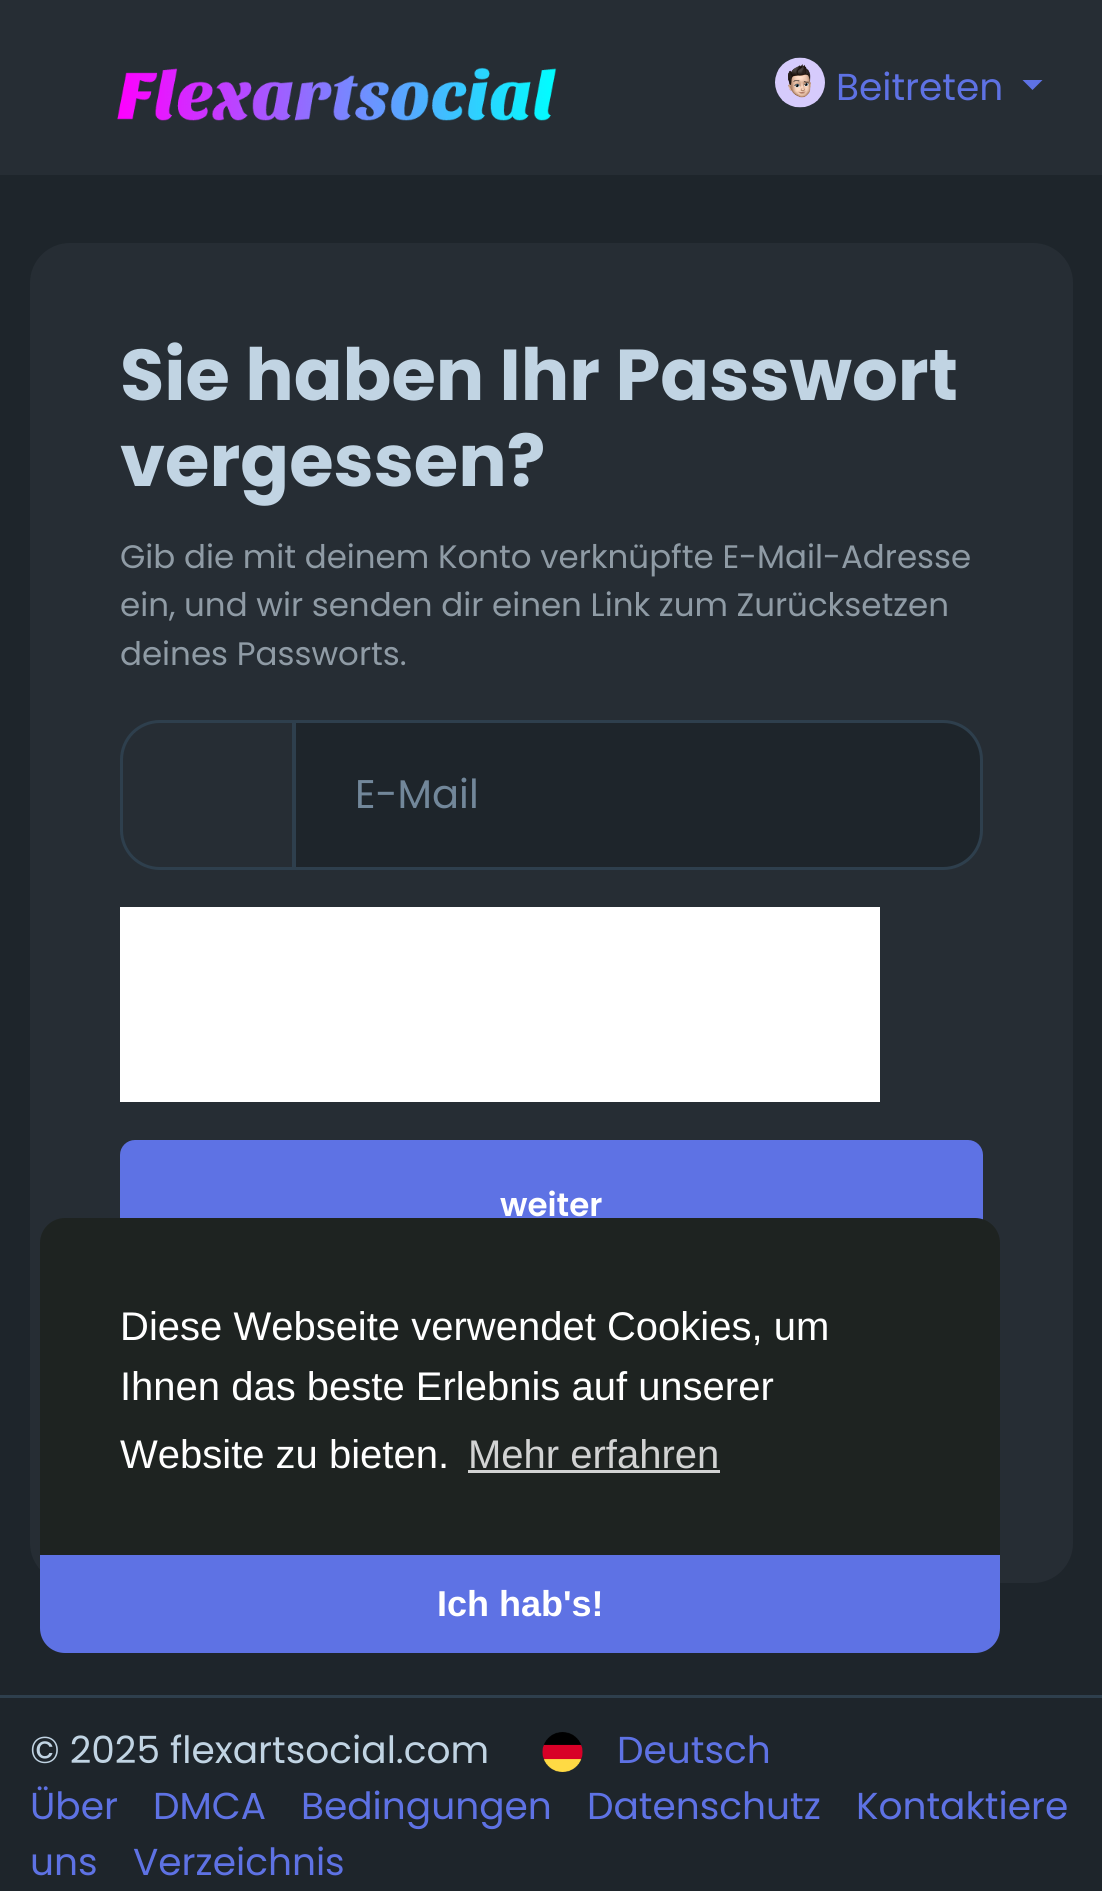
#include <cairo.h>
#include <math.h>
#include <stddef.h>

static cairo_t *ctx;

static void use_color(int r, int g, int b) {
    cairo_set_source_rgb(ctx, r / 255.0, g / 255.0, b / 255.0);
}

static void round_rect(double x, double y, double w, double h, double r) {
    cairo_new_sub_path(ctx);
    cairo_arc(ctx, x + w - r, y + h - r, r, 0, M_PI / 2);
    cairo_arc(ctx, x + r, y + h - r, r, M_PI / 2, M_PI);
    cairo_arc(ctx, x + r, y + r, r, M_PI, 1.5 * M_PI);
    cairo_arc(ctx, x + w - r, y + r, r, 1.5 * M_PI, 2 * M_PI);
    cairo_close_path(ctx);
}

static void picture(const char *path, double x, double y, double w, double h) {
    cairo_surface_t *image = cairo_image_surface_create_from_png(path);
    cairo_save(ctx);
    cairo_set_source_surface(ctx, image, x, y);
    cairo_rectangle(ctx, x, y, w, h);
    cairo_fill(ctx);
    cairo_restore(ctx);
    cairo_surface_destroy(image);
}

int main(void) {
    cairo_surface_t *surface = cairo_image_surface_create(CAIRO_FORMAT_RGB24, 1102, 1891);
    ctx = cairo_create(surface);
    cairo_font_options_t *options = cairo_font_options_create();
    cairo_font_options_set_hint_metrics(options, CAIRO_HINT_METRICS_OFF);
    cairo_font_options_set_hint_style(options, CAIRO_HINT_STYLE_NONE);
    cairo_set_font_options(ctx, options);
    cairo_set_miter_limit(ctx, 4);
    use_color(30, 37, 43);
    cairo_paint(ctx);
    use_color(38, 45, 52);
    cairo_rectangle(ctx, 0, 0, 1102, 175);
    cairo_fill(ctx);
    picture("img1.png", 117, 67, 440, 54);
    picture("img2.png", 775, 57, 50, 51);
    cairo_select_font_face(ctx, "Poppins", CAIRO_FONT_SLANT_NORMAL, CAIRO_FONT_WEIGHT_NORMAL);
    cairo_set_font_size(ctx, 37.5);
    use_color(94, 114, 228);
    cairo_move_to(ctx, 836, 100);
    cairo_show_text(ctx, "Beitreten");
    cairo_new_path(ctx);
    cairo_move_to(ctx, 1022.5, 80);
    cairo_line_to(ctx, 1042.5, 80);
    cairo_line_to(ctx, 1032.5, 90);
    cairo_close_path(ctx);
    cairo_fill(ctx);
    use_color(38, 45, 52);
    round_rect(30, 243, 1043, 1340, 40);
    cairo_fill(ctx);
    cairo_select_font_face(ctx, "Poppins", CAIRO_FONT_SLANT_NORMAL, CAIRO_FONT_WEIGHT_BOLD);
    cairo_set_font_size(ctx, 72);
    use_color(193, 212, 227);
    cairo_move_to(ctx, 120, 400);
    cairo_show_text(ctx, "Sie haben Ihr Passwort");
    cairo_move_to(ctx, 120, 486);
    cairo_show_text(ctx, "vergessen?");
    cairo_select_font_face(ctx, "Poppins", CAIRO_FONT_SLANT_NORMAL, CAIRO_FONT_WEIGHT_NORMAL);
    cairo_set_font_size(ctx, 32.5);
    use_color(143, 155, 165);
    cairo_move_to(ctx, 120, 568);
    cairo_show_text(ctx, "Gib die mit deinem Konto verknüpfte E-Mail-Adresse");
    cairo_move_to(ctx, 120, 616);
    cairo_show_text(ctx, "ein, und wir senden dir einen Link zum Zurücksetzen");
    cairo_move_to(ctx, 120, 665);
    cairo_show_text(ctx, "deines Passworts.");
    cairo_new_path(ctx);
    cairo_move_to(ctx, 160, 721.5);
    cairo_line_to(ctx, 293.5, 721.5);
    cairo_line_to(ctx, 293.5, 868.5);
    cairo_line_to(ctx, 160, 868.5);
    cairo_curve_to(ctx, 138.5, 868.5, 121.5, 851.5, 121.5, 830);
    cairo_line_to(ctx, 121.5, 760);
    cairo_curve_to(ctx, 121.5, 738.5, 138.5, 721.5, 160, 721.5);
    cairo_close_path(ctx);
    use_color(46, 63, 77);
    cairo_set_line_width(ctx, 3);
    cairo_stroke(ctx);
    use_color(30, 37, 43);
    cairo_new_path(ctx);
    cairo_move_to(ctx, 294.5, 721.5);
    cairo_line_to(ctx, 943, 721.5);
    cairo_curve_to(ctx, 964.5, 721.5, 981.5, 738.5, 981.5, 760);
    cairo_line_to(ctx, 981.5, 830);
    cairo_curve_to(ctx, 981.5, 851.5, 964.5, 868.5, 943, 868.5);
    cairo_line_to(ctx, 294.5, 868.5);
    cairo_close_path(ctx);
    cairo_fill_preserve(ctx);
    use_color(46, 63, 77);
    cairo_stroke(ctx);
    cairo_set_font_size(ctx, 40);
    use_color(114, 135, 154);
    cairo_move_to(ctx, 355, 808);
    cairo_show_text(ctx, "E-Mail");
    use_color(255, 255, 255);
    cairo_rectangle(ctx, 120, 907, 760, 195);
    cairo_fill(ctx);
    use_color(94, 114, 228);
    round_rect(121.5, 1141.5, 860, 130, 13.5);
    cairo_fill_preserve(ctx);
    cairo_stroke(ctx);
    cairo_select_font_face(ctx, "Poppins SemiBold", CAIRO_FONT_SLANT_NORMAL, CAIRO_FONT_WEIGHT_NORMAL);
    cairo_set_font_size(ctx, 32.5);
    use_color(255, 255, 255);
    cairo_move_to(ctx, 500, 1216);
    cairo_show_text(ctx, "weiter");
    use_color(46, 63, 77);
    cairo_rectangle(ctx, 0, 1695, 1102, 3);
    cairo_fill(ctx);
    cairo_select_font_face(ctx, "Poppins", CAIRO_FONT_SLANT_NORMAL, CAIRO_FONT_WEIGHT_NORMAL);
    cairo_set_font_size(ctx, 37.5);
    use_color(193, 212, 227);
    cairo_move_to(ctx, 30, 1763);
    cairo_show_text(ctx, "© 2025 flexartsocial.com");
    picture("img3.png", 542, 1732, 41, 40);
    use_color(94, 114, 228);
    cairo_move_to(ctx, 617, 1763);
    cairo_show_text(ctx, "Deutsch");
    cairo_move_to(ctx, 30, 1819);
    cairo_show_text(ctx, "Über");
    cairo_move_to(ctx, 153, 1819);
    cairo_show_text(ctx, "DMCA");
    cairo_move_to(ctx, 301, 1819);
    cairo_show_text(ctx, "Bedingungen");
    cairo_move_to(ctx, 587, 1819);
    cairo_show_text(ctx, "Datenschutz");
    cairo_move_to(ctx, 856, 1819);
    cairo_show_text(ctx, "Kontaktiere");
    cairo_move_to(ctx, 30, 1875);
    cairo_show_text(ctx, "uns");
    cairo_move_to(ctx, 133, 1875);
    cairo_show_text(ctx, "Verzeichnis");
    use_color(30, 35, 33);
    round_rect(40, 1218, 960, 435, 25);
    cairo_fill(ctx);
    cairo_select_font_face(ctx, "Liberation Sans", CAIRO_FONT_SLANT_NORMAL, CAIRO_FONT_WEIGHT_NORMAL);
    cairo_set_font_size(ctx, 40);
    use_color(255, 255, 255);
    cairo_move_to(ctx, 120, 1340);
    cairo_show_text(ctx, "Diese Webseite verwendet Cookies, um");
    cairo_move_to(ctx, 120, 1400);
    cairo_show_text(ctx, "Ihnen das beste Erlebnis auf unserer");
    cairo_move_to(ctx, 120, 1468);
    cairo_show_text(ctx, "Website zu bieten.");
    use_color(210, 211, 211);
    cairo_move_to(ctx, 468, 1468);
    cairo_show_text(ctx, "Mehr erfahren");
    cairo_rectangle(ctx, 468, 1470, 252, 3);
    cairo_fill(ctx);
    use_color(94, 114, 228);
    cairo_new_path(ctx);
    cairo_move_to(ctx, 40, 1555);
    cairo_line_to(ctx, 1000, 1555);
    cairo_line_to(ctx, 1000, 1628);
    cairo_curve_to(ctx, 1000, 1642, 989, 1653, 975, 1653);
    cairo_line_to(ctx, 65, 1653);
    cairo_curve_to(ctx, 51, 1653, 40, 1642, 40, 1628);
    cairo_close_path(ctx);
    cairo_fill(ctx);
    cairo_select_font_face(ctx, "Liberation Sans", CAIRO_FONT_SLANT_NORMAL, CAIRO_FONT_WEIGHT_BOLD);
    cairo_set_font_size(ctx, 36);
    use_color(255, 255, 255);
    cairo_move_to(ctx, 437, 1616);
    cairo_show_text(ctx, "Ich hab's!");
    cairo_surface_write_to_png(surface, "result.png");
    cairo_font_options_destroy(options);
    cairo_destroy(ctx);
    cairo_surface_destroy(surface);
    return 0;
}
